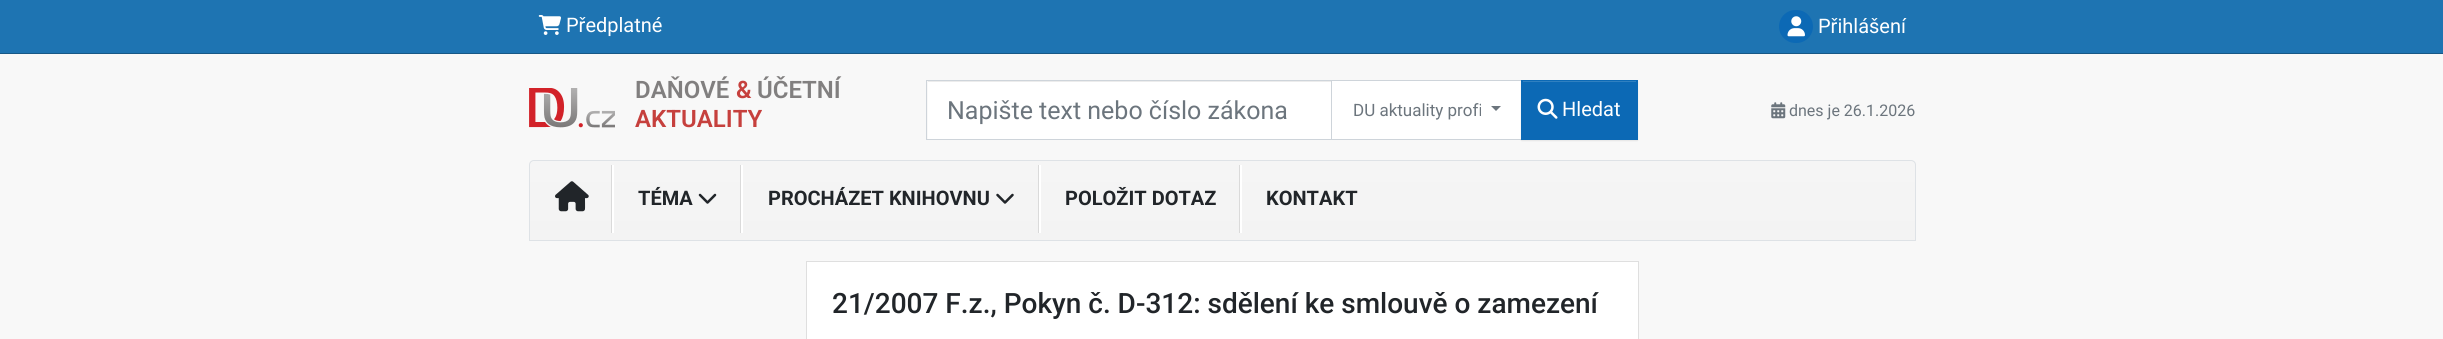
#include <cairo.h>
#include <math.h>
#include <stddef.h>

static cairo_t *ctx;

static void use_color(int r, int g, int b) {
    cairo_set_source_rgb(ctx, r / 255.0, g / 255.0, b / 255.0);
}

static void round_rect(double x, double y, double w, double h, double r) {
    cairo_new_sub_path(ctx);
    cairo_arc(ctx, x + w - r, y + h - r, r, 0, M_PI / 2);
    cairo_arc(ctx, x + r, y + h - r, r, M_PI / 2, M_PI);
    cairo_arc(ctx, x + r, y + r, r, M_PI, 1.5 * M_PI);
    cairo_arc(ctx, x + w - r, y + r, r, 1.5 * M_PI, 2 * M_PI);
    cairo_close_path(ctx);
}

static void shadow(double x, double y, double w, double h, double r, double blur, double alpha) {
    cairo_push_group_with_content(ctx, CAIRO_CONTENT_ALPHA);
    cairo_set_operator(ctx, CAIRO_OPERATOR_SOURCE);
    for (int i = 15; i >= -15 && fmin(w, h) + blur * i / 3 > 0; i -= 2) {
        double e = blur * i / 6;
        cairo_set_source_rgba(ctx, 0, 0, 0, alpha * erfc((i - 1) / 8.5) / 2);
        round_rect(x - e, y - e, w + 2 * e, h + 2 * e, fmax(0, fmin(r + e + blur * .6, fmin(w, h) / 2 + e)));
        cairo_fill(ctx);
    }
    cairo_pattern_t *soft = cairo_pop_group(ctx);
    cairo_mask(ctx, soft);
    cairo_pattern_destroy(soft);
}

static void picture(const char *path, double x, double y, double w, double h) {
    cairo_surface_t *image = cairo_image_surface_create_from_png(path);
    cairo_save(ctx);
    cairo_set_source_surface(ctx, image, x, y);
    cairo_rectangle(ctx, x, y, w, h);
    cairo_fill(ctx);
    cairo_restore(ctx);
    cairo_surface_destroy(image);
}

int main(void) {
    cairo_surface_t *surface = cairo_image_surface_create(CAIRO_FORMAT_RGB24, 2443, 339);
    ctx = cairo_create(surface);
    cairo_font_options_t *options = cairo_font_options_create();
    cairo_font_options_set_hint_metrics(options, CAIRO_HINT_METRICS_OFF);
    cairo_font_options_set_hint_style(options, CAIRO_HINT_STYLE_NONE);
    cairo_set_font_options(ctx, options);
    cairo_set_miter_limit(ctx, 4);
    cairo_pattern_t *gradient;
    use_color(248, 248, 248);
    cairo_paint(ctx);
    use_color(30, 116, 178);
    cairo_rectangle(ctx, 0, 0, 2443, 53);
    cairo_fill(ctx);
    use_color(23, 88, 134);
    cairo_rectangle(ctx, 0, 53, 2443, 1);
    cairo_fill(ctx);
    picture("img1.png", 538, 15, 23, 20);
    cairo_select_font_face(ctx, "Roboto", CAIRO_FONT_SLANT_NORMAL, CAIRO_FONT_WEIGHT_NORMAL);
    cairo_set_font_size(ctx, 20);
    use_color(255, 255, 255);
    cairo_move_to(ctx, 566, 32);
    cairo_show_text(ctx, "Předplatné");
    use_color(12, 105, 181);
    round_rect(1779, 10, 34, 33, 16.5);
    cairo_fill(ctx);
    picture("img2.png", 1787, 16, 18, 21);
    use_color(255, 255, 255);
    cairo_move_to(ctx, 1818, 33);
    cairo_show_text(ctx, "Přihlášení");
    picture("img3.png", 529, 88, 86, 40);
    cairo_select_font_face(ctx, "Roboto SemiBold", CAIRO_FONT_SLANT_NORMAL, CAIRO_FONT_WEIGHT_NORMAL);
    cairo_set_font_size(ctx, 24);
    use_color(129, 127, 127);
    cairo_move_to(ctx, 635, 98);
    cairo_show_text(ctx, "DAŇOVÉ");
    use_color(198, 64, 61);
    cairo_move_to(ctx, 736, 98);
    cairo_show_text(ctx, "&");
    use_color(129, 127, 127);
    cairo_move_to(ctx, 757, 98);
    cairo_show_text(ctx, "ÚČETNÍ");
    use_color(198, 64, 61);
    cairo_move_to(ctx, 635, 127);
    cairo_show_text(ctx, "AKTUALITY");
    use_color(255, 255, 255);
    cairo_rectangle(ctx, 928, 82, 403, 57);
    cairo_fill(ctx);
    use_color(236, 236, 236);
    cairo_rectangle(ctx, 928, 81, 403, 1);
    cairo_fill(ctx);
    cairo_rectangle(ctx, 926.5, 80.5, 406, 59);
    use_color(206, 212, 218);
    cairo_set_line_width(ctx, 1);
    cairo_stroke(ctx);
    cairo_select_font_face(ctx, "Roboto", CAIRO_FONT_SLANT_NORMAL, CAIRO_FONT_WEIGHT_NORMAL);
    cairo_set_font_size(ctx, 25);
    use_color(108, 117, 125);
    cairo_move_to(ctx, 947, 119);
    cairo_show_text(ctx, "Napište text nebo číslo zákona");
    use_color(255, 255, 255);
    cairo_rectangle(ctx, 1332, 81, 189, 58);
    cairo_fill(ctx);
    cairo_rectangle(ctx, 1331.5, 80.5, 191, 59);
    use_color(206, 212, 218);
    cairo_stroke(ctx);
    cairo_set_font_size(ctx, 17);
    use_color(108, 117, 125);
    cairo_move_to(ctx, 1353, 116);
    cairo_show_text(ctx, "DU aktuality profi");
    cairo_new_path(ctx);
    cairo_move_to(ctx, 1491, 106);
    cairo_line_to(ctx, 1501, 106);
    cairo_line_to(ctx, 1496, 111);
    cairo_close_path(ctx);
    cairo_fill(ctx);
    use_color(0, 0, 0);
    shadow(1521, 81, 117, 60, 0, 0.5, 0.07);
    use_color(12, 105, 181);
    cairo_rectangle(ctx, 1521, 80, 117, 60);
    cairo_fill(ctx);
    use_color(48, 128, 192);
    cairo_rectangle(ctx, 1523, 81, 113, 1);
    cairo_fill(ctx);
    picture("img4.png", 1537, 98, 21, 21);
    cairo_set_font_size(ctx, 20);
    use_color(255, 255, 255);
    cairo_move_to(ctx, 1562, 116);
    cairo_show_text(ctx, "Hledat");
    picture("img5.png", 1771, 102, 15, 17);
    cairo_set_font_size(ctx, 16);
    use_color(108, 117, 125);
    cairo_move_to(ctx, 1789, 116);
    cairo_show_text(ctx, "dnes je 26.1.2026");
    cairo_save(ctx);
    cairo_new_path(ctx);
    cairo_move_to(ctx, 534, 160);
    cairo_line_to(ctx, 1911, 160);
    cairo_curve_to(ctx, 1914, 160, 1916, 162, 1916, 165);
    cairo_line_to(ctx, 1916, 241);
    cairo_line_to(ctx, 529, 241);
    cairo_line_to(ctx, 529, 165);
    cairo_curve_to(ctx, 529, 162, 531, 160, 534, 160);
    cairo_close_path(ctx);
    cairo_clip(ctx);
    gradient = cairo_pattern_create_linear(1223, 161, 1223, 240);
    cairo_pattern_add_color_stop_rgba(gradient, 0, 0.961, 0.961, 0.961, 1);
    cairo_pattern_add_color_stop_rgba(gradient, 1, 0.953, 0.953, 0.953, 1);
    cairo_set_source(ctx, gradient);
    cairo_pattern_destroy(gradient);
    cairo_rectangle(ctx, 529, 161, 1387, 79);
    cairo_fill(ctx);
    cairo_restore(ctx);
    cairo_new_path(ctx);
    cairo_move_to(ctx, 534, 160.5);
    cairo_line_to(ctx, 1911, 160.5);
    cairo_curve_to(ctx, 1913.5, 160.5, 1915.5, 162.5, 1915.5, 165);
    cairo_line_to(ctx, 1915.5, 240.5);
    cairo_line_to(ctx, 529.5, 240.5);
    cairo_line_to(ctx, 529.5, 165);
    cairo_curve_to(ctx, 529.5, 162.5, 531.5, 160.5, 534, 160.5);
    cairo_close_path(ctx);
    use_color(222, 226, 230);
    cairo_stroke(ctx);
    picture("img6.png", 555, 181, 34, 31);
    use_color(255, 255, 255);
    cairo_rectangle(ctx, 612, 165, 2, 68);
    cairo_fill(ctx);
    use_color(218, 218, 218);
    cairo_rectangle(ctx, 611, 165, 1, 68);
    cairo_fill(ctx);
    cairo_select_font_face(ctx, "Roboto", CAIRO_FONT_SLANT_NORMAL, CAIRO_FONT_WEIGHT_BOLD);
    cairo_set_font_size(ctx, 20);
    use_color(33, 37, 41);
    cairo_move_to(ctx, 638, 205);
    cairo_show_text(ctx, "TÉMA");
    picture("img7.png", 698, 193, 19, 11);
    use_color(255, 255, 255);
    cairo_rectangle(ctx, 741, 165, 2, 68);
    cairo_fill(ctx);
    use_color(218, 218, 218);
    cairo_rectangle(ctx, 740, 165, 1, 68);
    cairo_fill(ctx);
    use_color(33, 37, 41);
    cairo_move_to(ctx, 768, 205);
    cairo_show_text(ctx, "PROCHÁZET KNIHOVNU");
    picture("img8.png", 996, 193, 18, 11);
    use_color(255, 255, 255);
    cairo_rectangle(ctx, 1039, 165, 2, 68);
    cairo_fill(ctx);
    use_color(218, 218, 218);
    cairo_rectangle(ctx, 1038, 165, 1, 68);
    cairo_fill(ctx);
    use_color(33, 37, 41);
    cairo_move_to(ctx, 1065, 205);
    cairo_show_text(ctx, "POLOŽIT DOTAZ");
    use_color(255, 255, 255);
    cairo_rectangle(ctx, 1240, 165, 2, 68);
    cairo_fill(ctx);
    use_color(218, 218, 218);
    cairo_rectangle(ctx, 1239, 165, 1, 68);
    cairo_fill(ctx);
    use_color(33, 37, 41);
    cairo_move_to(ctx, 1266, 205);
    cairo_show_text(ctx, "KONTAKT");
    use_color(255, 255, 255);
    cairo_rectangle(ctx, 806.5, 261.5, 832, 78);
    cairo_fill_preserve(ctx);
    use_color(223, 223, 223);
    cairo_stroke(ctx);
    cairo_select_font_face(ctx, "Roboto Medium", CAIRO_FONT_SLANT_NORMAL, CAIRO_FONT_WEIGHT_NORMAL);
    cairo_set_font_size(ctx, 28);
    use_color(33, 37, 41);
    cairo_move_to(ctx, 832, 313);
    cairo_show_text(ctx, "21/2007 F.z., Pokyn č. D-312: sdělení ke smlouvě o zamezení");
    cairo_surface_write_to_png(surface, "result.png");
    cairo_font_options_destroy(options);
    cairo_destroy(ctx);
    cairo_surface_destroy(surface);
    return 0;
}
